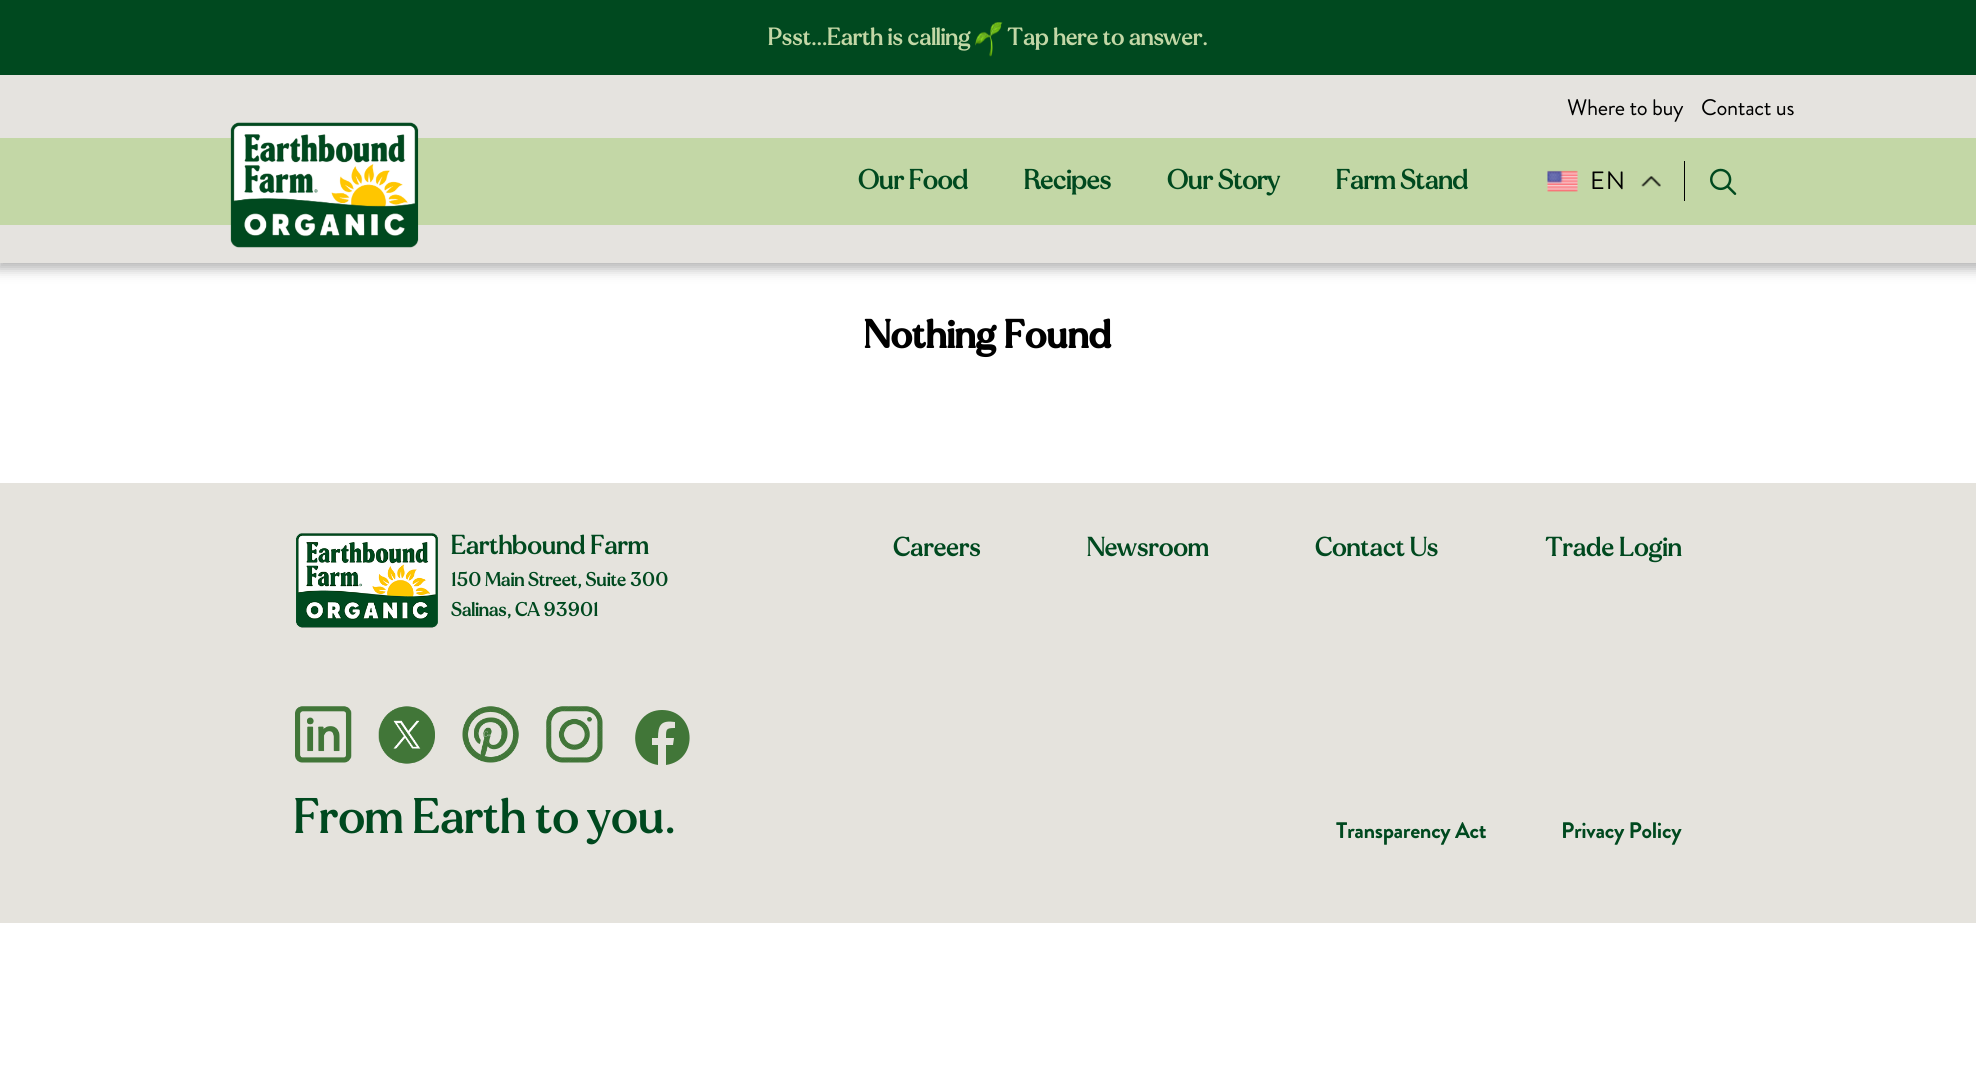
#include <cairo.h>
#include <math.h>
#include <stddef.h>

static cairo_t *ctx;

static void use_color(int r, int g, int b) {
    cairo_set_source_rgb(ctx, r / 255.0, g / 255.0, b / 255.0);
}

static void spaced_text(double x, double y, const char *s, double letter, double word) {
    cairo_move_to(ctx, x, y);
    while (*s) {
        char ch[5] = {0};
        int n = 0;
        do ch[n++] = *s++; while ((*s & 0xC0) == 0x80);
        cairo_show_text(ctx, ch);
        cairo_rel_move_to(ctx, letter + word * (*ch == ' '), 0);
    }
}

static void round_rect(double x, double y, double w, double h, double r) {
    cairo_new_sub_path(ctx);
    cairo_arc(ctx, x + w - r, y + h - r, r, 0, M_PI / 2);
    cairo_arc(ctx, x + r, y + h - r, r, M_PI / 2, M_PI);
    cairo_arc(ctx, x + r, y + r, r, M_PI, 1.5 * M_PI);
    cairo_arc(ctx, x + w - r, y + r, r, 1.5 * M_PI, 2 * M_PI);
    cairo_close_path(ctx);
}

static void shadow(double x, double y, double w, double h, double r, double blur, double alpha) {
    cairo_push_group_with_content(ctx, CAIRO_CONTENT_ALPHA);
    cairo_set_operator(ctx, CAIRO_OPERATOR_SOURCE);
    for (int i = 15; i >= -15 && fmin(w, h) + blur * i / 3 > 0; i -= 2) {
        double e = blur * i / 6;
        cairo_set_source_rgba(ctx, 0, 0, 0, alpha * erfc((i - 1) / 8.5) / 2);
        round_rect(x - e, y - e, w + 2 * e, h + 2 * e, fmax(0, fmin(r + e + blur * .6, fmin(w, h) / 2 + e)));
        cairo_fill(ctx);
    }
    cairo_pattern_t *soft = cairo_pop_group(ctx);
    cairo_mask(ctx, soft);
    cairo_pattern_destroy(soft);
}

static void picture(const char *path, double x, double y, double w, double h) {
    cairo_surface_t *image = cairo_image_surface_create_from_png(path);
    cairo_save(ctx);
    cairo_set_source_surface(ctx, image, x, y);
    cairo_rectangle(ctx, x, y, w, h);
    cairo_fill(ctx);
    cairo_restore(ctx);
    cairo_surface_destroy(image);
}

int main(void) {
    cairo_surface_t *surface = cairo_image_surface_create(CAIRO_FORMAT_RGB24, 1976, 1080);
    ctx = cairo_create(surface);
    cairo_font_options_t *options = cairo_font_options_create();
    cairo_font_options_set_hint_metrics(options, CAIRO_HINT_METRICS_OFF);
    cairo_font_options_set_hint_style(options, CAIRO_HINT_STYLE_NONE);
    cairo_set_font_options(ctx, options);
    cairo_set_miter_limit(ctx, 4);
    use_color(255, 255, 255);
    cairo_paint(ctx);
    use_color(127, 127, 127);
    shadow(-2, -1, 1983, 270, 0, 6, 0.58);
    use_color(229, 227, 223);
    cairo_rectangle(ctx, 0, 75, 1976, 188);
    cairo_fill(ctx);
    use_color(0, 73, 31);
    cairo_rectangle(ctx, 0, 0, 1976, 75);
    cairo_fill(ctx);
    cairo_select_font_face(ctx, "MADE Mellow", CAIRO_FONT_SLANT_NORMAL, CAIRO_FONT_WEIGHT_NORMAL);
    cairo_set_font_size(ctx, 25);
    use_color(195, 215, 166);
    spaced_text(768, 45, "Psst…Earth is calling", -0.35, 0);
    picture("img1.png", 975, 22, 28, 35);
    spaced_text(1007, 45, "Tap here to answer.", -0.35, 0);
    cairo_rectangle(ctx, 0, 138, 1976, 87);
    cairo_fill(ctx);
    cairo_select_font_face(ctx, "Brandon Grotesque", CAIRO_FONT_SLANT_NORMAL, CAIRO_FONT_WEIGHT_NORMAL);
    cairo_set_font_size(ctx, 22.5);
    use_color(0, 0, 0);
    spaced_text(1567, 115, "Where to buy", -0.35, 0);
    spaced_text(1701, 115, "Contact us", -0.35, 0);
    picture("img2.png", 230, 122, 189, 126);
    cairo_select_font_face(ctx, "MADE Mellow", CAIRO_FONT_SLANT_NORMAL, CAIRO_FONT_WEIGHT_NORMAL);
    cairo_set_font_size(ctx, 28.75);
    use_color(0, 73, 31);
    spaced_text(858, 189, "Our Food", -0.75, 0);
    spaced_text(1024, 189, "Recipes", -0.75, 0);
    spaced_text(1167, 189, "Our Story", -0.75, 0);
    spaced_text(1336, 189, "Farm Stand", -0.75, 0);
    use_color(0, 0, 0);
    cairo_rectangle(ctx, 1684, 161, 1, 40);
    cairo_fill(ctx);
    picture("img3.png", 1547, 170, 31, 22);
    cairo_select_font_face(ctx, "Brandon Grotesque", CAIRO_FONT_SLANT_NORMAL, CAIRO_FONT_WEIGHT_NORMAL);
    cairo_set_font_size(ctx, 25);
    spaced_text(1590, 189, "EN", 1, 0);
    picture("img4.png", 1641, 176, 20, 11);
    picture("img5.png", 1710, 168, 27, 27);
    cairo_select_font_face(ctx, "MADE Mellow", CAIRO_FONT_SLANT_NORMAL, CAIRO_FONT_WEIGHT_BOLD);
    cairo_set_font_size(ctx, 40);
    cairo_move_to(ctx, 864, 348);
    cairo_show_text(ctx, "Nothing Found");
    use_color(229, 227, 221);
    cairo_rectangle(ctx, 0, 483, 1976, 440);
    cairo_fill(ctx);
    picture("img6.png", 296, 533, 142, 95);
    cairo_select_font_face(ctx, "MADE Mellow", CAIRO_FONT_SLANT_NORMAL, CAIRO_FONT_WEIGHT_NORMAL);
    cairo_set_font_size(ctx, 27.5);
    use_color(0, 73, 31);
    spaced_text(451, 554, "Earthbound Farm", -0.35, 0);
    cairo_set_font_size(ctx, 20);
    spaced_text(451, 586, "150 Main Street, Suite 300", -0.35, 0);
    spaced_text(451, 616, "Salinas, CA 93901", -0.35, 0);
    cairo_set_font_size(ctx, 27.5);
    spaced_text(893, 556, "Careers", -0.35, 0);
    spaced_text(1087, 556, "Newsroom", -0.35, 0);
    spaced_text(1315, 556, "Contact Us", -0.35, 0);
    spaced_text(1545, 556, "Trade Login", -0.35, 0);
    picture("img7.png", 295, 706, 57, 57);
    picture("img8.png", 378, 706, 57, 58);
    picture("img9.png", 462, 706, 57, 57);
    picture("img10.png", 546, 706, 57, 57);
    use_color(65, 118, 56);
    cairo_new_path(ctx);
    cairo_move_to(ctx, 662, 710);
    cairo_curve_to(ctx, 629, 710, 625, 760, 658, 765);
    cairo_line_to(ctx, 658, 745);
    cairo_line_to(ctx, 652, 745);
    cairo_line_to(ctx, 652, 738);
    cairo_line_to(ctx, 658, 738);
    cairo_curve_to(ctx, 658, 725, 661, 720, 675, 722);
    cairo_line_to(ctx, 675, 728);
    cairo_curve_to(ctx, 666, 728, 666, 729, 666, 738);
    cairo_line_to(ctx, 674, 738);
    cairo_line_to(ctx, 673, 745);
    cairo_line_to(ctx, 666, 745);
    cairo_line_to(ctx, 666, 765);
    cairo_curve_to(ctx, 700, 760, 696, 710, 662, 710);
    cairo_close_path(ctx);
    cairo_fill(ctx);
    cairo_set_font_size(ctx, 50);
    use_color(0, 73, 31);
    spaced_text(294, 833, "From Earth to you.", -0.35, 0);
    cairo_select_font_face(ctx, "Brandon Grotesque", CAIRO_FONT_SLANT_NORMAL, CAIRO_FONT_WEIGHT_BOLD);
    cairo_set_font_size(ctx, 22.5);
    spaced_text(1336, 838, "Transparency Act", -0.35, 0);
    spaced_text(1561, 838, "Privacy Policy", -0.35, 0);
    cairo_surface_write_to_png(surface, "result.png");
    cairo_font_options_destroy(options);
    cairo_destroy(ctx);
    cairo_surface_destroy(surface);
    return 0;
}
